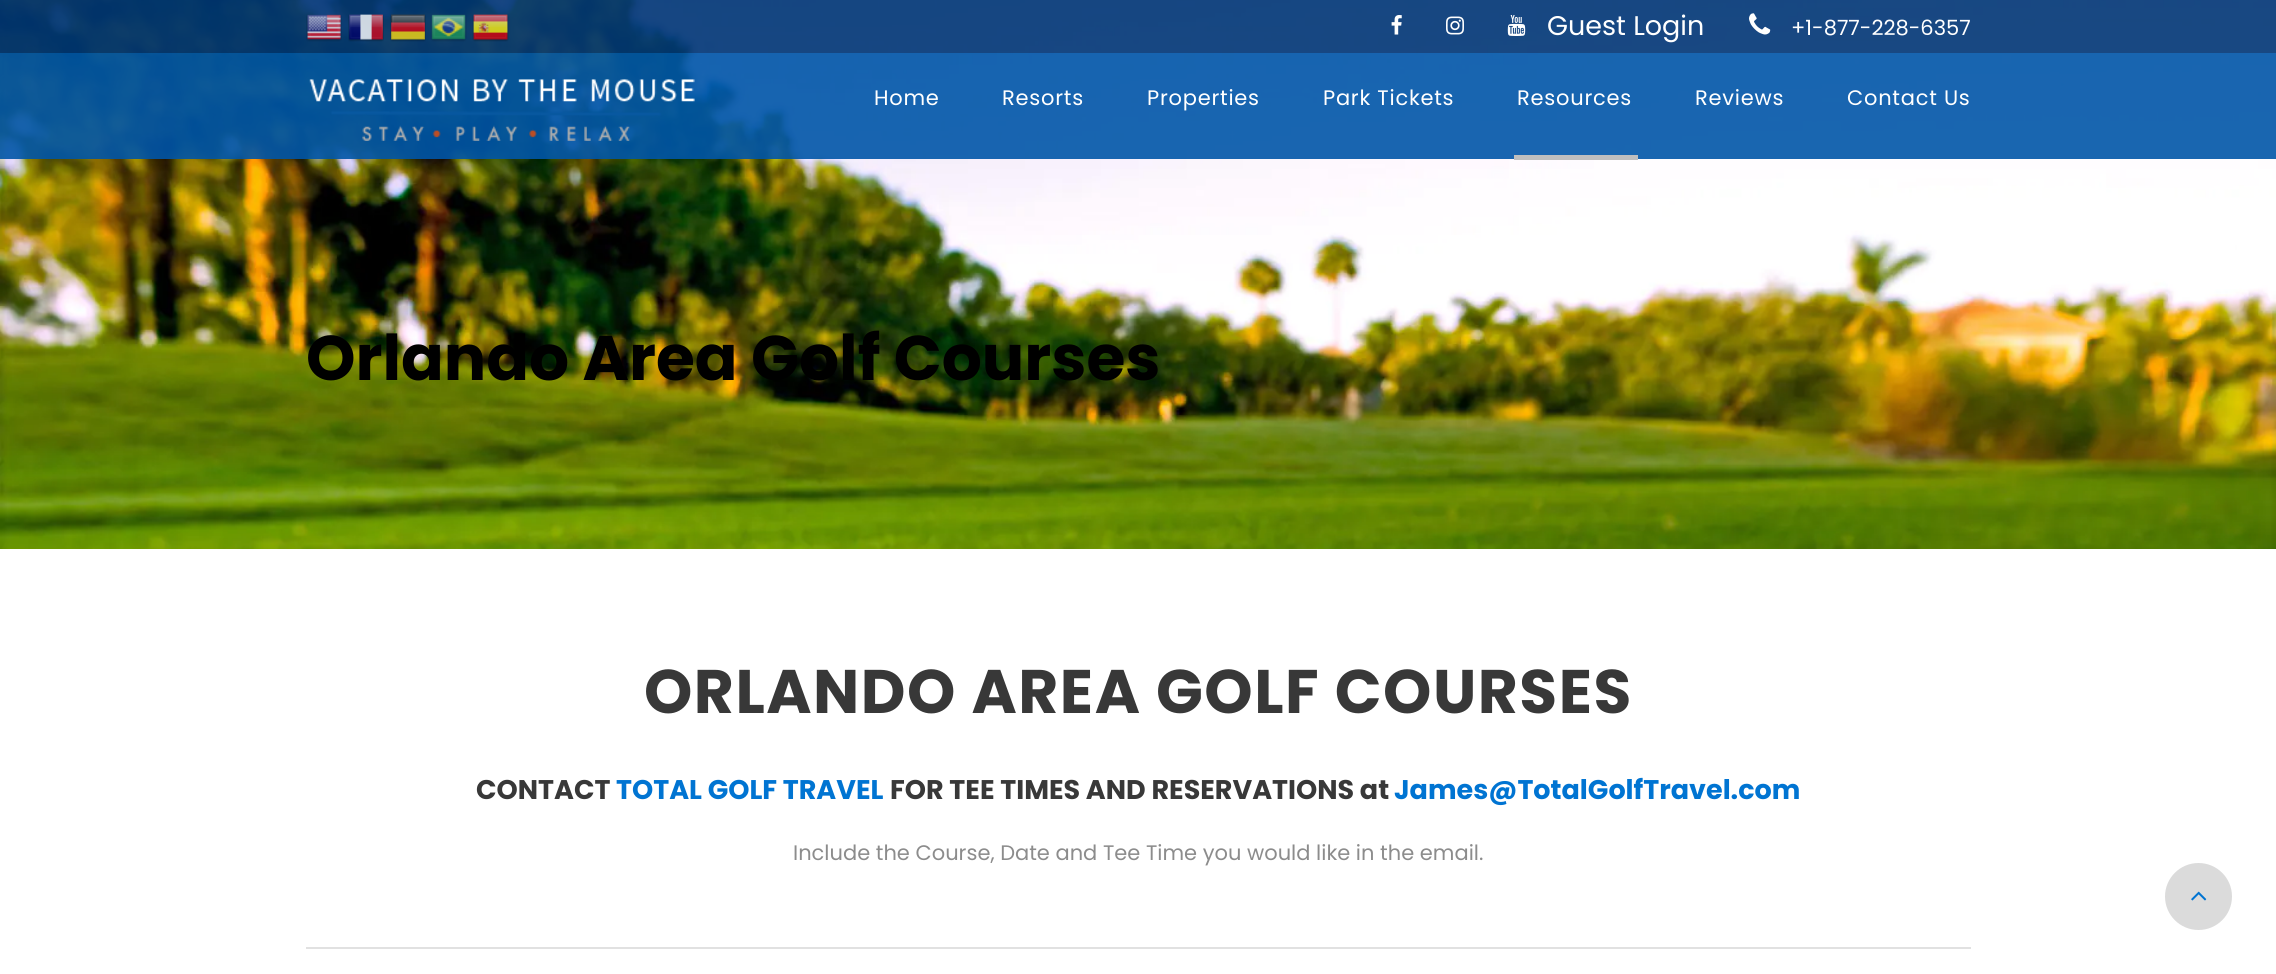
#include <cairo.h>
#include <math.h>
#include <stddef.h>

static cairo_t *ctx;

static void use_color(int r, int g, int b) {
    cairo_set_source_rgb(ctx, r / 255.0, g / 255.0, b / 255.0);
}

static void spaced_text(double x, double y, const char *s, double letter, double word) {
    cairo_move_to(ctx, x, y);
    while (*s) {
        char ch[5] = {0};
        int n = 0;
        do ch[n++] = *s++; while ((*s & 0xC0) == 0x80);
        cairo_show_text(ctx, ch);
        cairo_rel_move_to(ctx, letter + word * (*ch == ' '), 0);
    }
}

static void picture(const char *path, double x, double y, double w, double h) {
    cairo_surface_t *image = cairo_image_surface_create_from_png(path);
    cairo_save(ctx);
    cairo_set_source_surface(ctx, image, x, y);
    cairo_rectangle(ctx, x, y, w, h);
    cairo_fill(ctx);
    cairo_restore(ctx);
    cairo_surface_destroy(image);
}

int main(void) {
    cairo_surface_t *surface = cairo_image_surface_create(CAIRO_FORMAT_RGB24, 2276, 974);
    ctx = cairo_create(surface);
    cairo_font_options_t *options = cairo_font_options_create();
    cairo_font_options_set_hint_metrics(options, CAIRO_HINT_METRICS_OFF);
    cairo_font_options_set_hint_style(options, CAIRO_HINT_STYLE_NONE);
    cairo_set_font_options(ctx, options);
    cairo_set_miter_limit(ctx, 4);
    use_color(255, 255, 255);
    cairo_paint(ctx);
    picture("img11.png", 0, 0, 2276, 549);
    cairo_set_source_rgba(ctx, 0, 0.212, 0.459, 0.9);
    cairo_rectangle(ctx, 0, 0, 2276, 53);
    cairo_fill(ctx);
    picture("img1.png", 306, 14, 36, 28);
    picture("img2.png", 348, 14, 36, 28);
    picture("img3.png", 390, 14, 36, 28);
    picture("img4.png", 430, 14, 37, 28);
    picture("img5.png", 472, 14, 37, 28);
    picture("img6.png", 1391, 15, 11, 20);
    picture("img7.png", 1446, 16, 18, 19);
    picture("img8.png", 1507, 15, 19, 21);
    cairo_select_font_face(ctx, "Poppins", CAIRO_FONT_SLANT_NORMAL, CAIRO_FONT_WEIGHT_NORMAL);
    cairo_set_font_size(ctx, 27);
    use_color(255, 255, 255);
    cairo_move_to(ctx, 1547, 35);
    cairo_show_text(ctx, "Guest Login");
    picture("img9.png", 1749, 13, 22, 22);
    cairo_set_font_size(ctx, 21);
    cairo_move_to(ctx, 1791, 35);
    cairo_show_text(ctx, "+1-877-228-6357");
    cairo_set_source_rgba(ctx, 0, 0.337, 0.659, 0.9);
    cairo_rectangle(ctx, 0, 53, 2276, 106);
    cairo_fill(ctx);
    picture("img10.png", 309, 79, 386, 62);
    use_color(255, 255, 255);
    spaced_text(874, 105, "Home", 0.75, 0);
    spaced_text(1002, 105, "Resorts", 0.75, 0);
    spaced_text(1147, 105, "Properties", 0.75, 0);
    spaced_text(1323, 105, "Park Tickets", 0.75, 0);
    spaced_text(1517, 105, "Resources", 0.75, 0);
    spaced_text(1695, 105, "Reviews", 0.75, 0);
    spaced_text(1847, 105, "Contact Us", 0.75, 0);
    use_color(191, 191, 191);
    cairo_rectangle(ctx, 1514, 155, 124, 5);
    cairo_fill(ctx);
    cairo_select_font_face(ctx, "Poppins", CAIRO_FONT_SLANT_NORMAL, CAIRO_FONT_WEIGHT_BOLD);
    cairo_set_font_size(ctx, 63);
    use_color(0, 0, 0);
    cairo_move_to(ctx, 306, 380);
    cairo_show_text(ctx, "Orlando Area Golf Courses");
    cairo_set_font_size(ctx, 61.5);
    use_color(56, 56, 56);
    spaced_text(644, 713, "ORLANDO AREA GOLF COURSES", 1.5, 0);
    cairo_set_font_size(ctx, 27);
    cairo_move_to(ctx, 476, 799);
    cairo_show_text(ctx, "CONTACT");
    use_color(0, 116, 210);
    cairo_move_to(ctx, 616, 799);
    cairo_show_text(ctx, "TOTAL GOLF TRAVEL");
    use_color(56, 56, 56);
    cairo_move_to(ctx, 890, 799);
    cairo_show_text(ctx, "FOR TEE TIMES AND RESERVATIONS at");
    use_color(0, 116, 210);
    cairo_move_to(ctx, 1394, 799);
    cairo_show_text(ctx, "James@TotalGolfTravel.com");
    cairo_select_font_face(ctx, "Poppins", CAIRO_FONT_SLANT_NORMAL, CAIRO_FONT_WEIGHT_NORMAL);
    cairo_set_font_size(ctx, 21);
    use_color(140, 140, 140);
    cairo_move_to(ctx, 793, 860);
    cairo_show_text(ctx, "Include the Course, Date and Tee Time you would like in the email.");
    use_color(225, 225, 225);
    cairo_rectangle(ctx, 306, 947, 1665, 2);
    cairo_fill(ctx);
    use_color(219, 219, 219);
    cairo_arc(ctx, 2198.5, 896.5, 33.5, 0, 2 * M_PI);
    cairo_fill(ctx);
    picture("img12.png", 2191, 891, 16, 10);
    cairo_surface_write_to_png(surface, "result.png");
    cairo_font_options_destroy(options);
    cairo_destroy(ctx);
    cairo_surface_destroy(surface);
    return 0;
}
